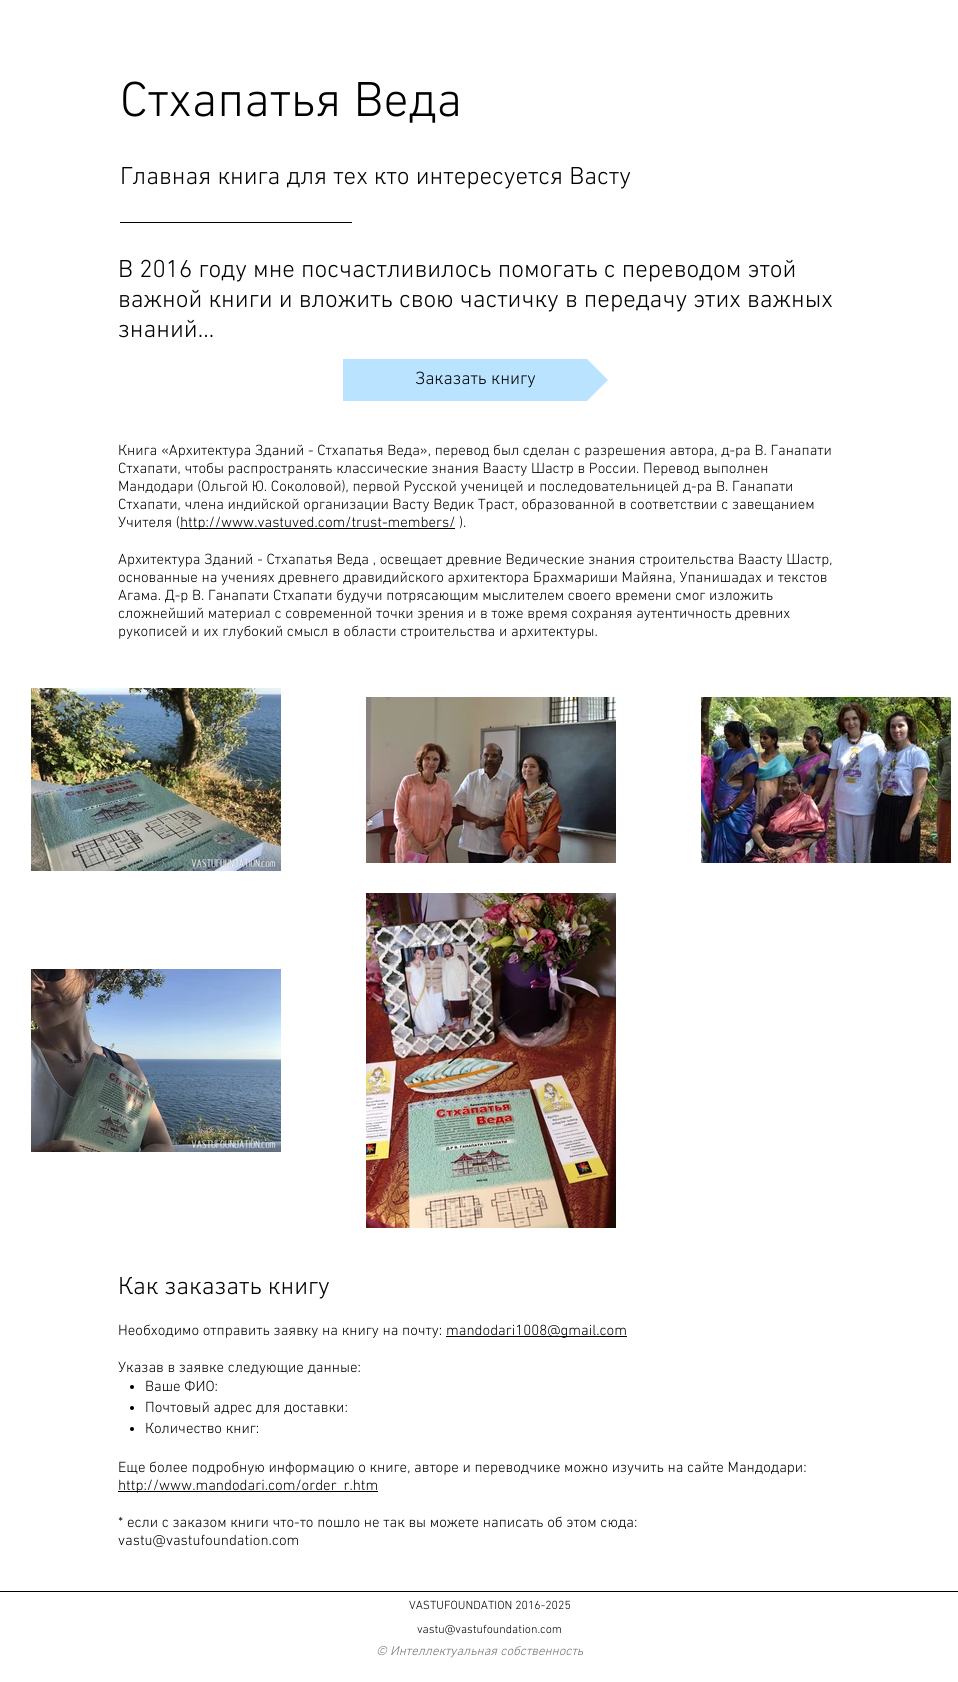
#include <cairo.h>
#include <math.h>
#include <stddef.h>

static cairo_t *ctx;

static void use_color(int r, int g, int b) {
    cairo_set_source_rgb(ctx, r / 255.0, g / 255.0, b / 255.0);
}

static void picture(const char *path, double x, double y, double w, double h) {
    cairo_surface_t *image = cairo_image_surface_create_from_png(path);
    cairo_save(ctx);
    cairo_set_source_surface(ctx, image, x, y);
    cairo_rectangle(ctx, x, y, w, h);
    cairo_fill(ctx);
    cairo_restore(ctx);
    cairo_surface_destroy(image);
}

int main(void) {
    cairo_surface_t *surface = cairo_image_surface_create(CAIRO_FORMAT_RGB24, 958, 1682);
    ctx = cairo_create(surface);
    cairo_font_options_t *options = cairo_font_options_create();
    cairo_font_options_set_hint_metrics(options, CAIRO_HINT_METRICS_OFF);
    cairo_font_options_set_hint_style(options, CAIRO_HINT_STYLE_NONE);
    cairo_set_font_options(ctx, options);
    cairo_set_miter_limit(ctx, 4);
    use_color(255, 255, 255);
    cairo_paint(ctx);
    cairo_select_font_face(ctx, "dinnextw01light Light", CAIRO_FONT_SLANT_NORMAL, CAIRO_FONT_WEIGHT_NORMAL);
    cairo_set_font_size(ctx, 50);
    use_color(0, 0, 0);
    cairo_move_to(ctx, 120, 116);
    cairo_show_text(ctx, "Стхапатья Веда");
    cairo_set_font_size(ctx, 25);
    cairo_move_to(ctx, 120, 184);
    cairo_show_text(ctx, "Главная книга для тех кто интересуется Васту");
    cairo_rectangle(ctx, 120, 222, 232, 1);
    cairo_fill(ctx);
    cairo_move_to(ctx, 118, 277);
    cairo_show_text(ctx, "В 2016 году мне посчастливилось помогать с переводом этой");
    cairo_move_to(ctx, 118, 307);
    cairo_show_text(ctx, "важной книги и вложить свою частичку в передачу этих важных");
    cairo_move_to(ctx, 118, 337);
    cairo_show_text(ctx, "знаний...");
    cairo_set_font_size(ctx, 15);
    cairo_move_to(ctx, 118, 455);
    cairo_show_text(ctx, "Книга «Архитектура Зданий - Стхапатья Веда», перевод был сделан с разрешения автора, д-ра В. Ганапати");
    cairo_move_to(ctx, 118, 473);
    cairo_show_text(ctx, "Стхапати, чтобы распространять классические знания Ваасту Шастр в России. Перевод выполнен");
    cairo_move_to(ctx, 118, 491);
    cairo_show_text(ctx, "Мандодари (Ольгой Ю. Соколовой), первой Русской ученицей и последовательницей д-ра В. Ганапати");
    cairo_move_to(ctx, 118, 509);
    cairo_show_text(ctx, "Стхапати, члена индийской организации Васту Ведик Траст, образованной в соответствии с завещанием");
    cairo_move_to(ctx, 118, 527);
    cairo_show_text(ctx, "Учителя (");
    cairo_rectangle(ctx, 180, 528, 275, 1);
    cairo_fill(ctx);
    cairo_move_to(ctx, 180, 527);
    cairo_show_text(ctx, "http://www.vastuved.com/trust-members/ ).");
    cairo_move_to(ctx, 118, 564);
    cairo_show_text(ctx, "Архитектура Зданий - Стхапатья Веда , освещает древние Ведические знания строительства Ваасту Шастр,");
    cairo_move_to(ctx, 118, 582);
    cairo_show_text(ctx, "основанные на учениях древнего дравидийского архитектора Брахмариши Майяна, Упанишадах и текстов");
    cairo_move_to(ctx, 118, 600);
    cairo_show_text(ctx, "Агама. Д-р В. Ганапати Стхапати будучи потрясающим мыслителем своего времени смог изложить");
    cairo_move_to(ctx, 118, 618);
    cairo_show_text(ctx, "сложнейший материал с современной точки зрения и в тоже время сохраняя аутентичность древних");
    cairo_move_to(ctx, 118, 636);
    cairo_show_text(ctx, "рукописей и их глубокий смысл в области строительства и архитектуры.");
    use_color(186, 227, 255);
    cairo_rectangle(ctx, 343, 359, 215, 42);
    cairo_fill(ctx);
    cairo_save(ctx);
    cairo_rectangle(ctx, 343, 359, 265, 42);
    cairo_clip(ctx);
    cairo_new_path(ctx);
    cairo_move_to(ctx, 608, 380);
    cairo_line_to(ctx, 558, 380);
    cairo_line_to(ctx, 558, 330);
    cairo_close_path(ctx);
    cairo_move_to(ctx, 558, 380);
    cairo_line_to(ctx, 608, 380);
    cairo_line_to(ctx, 558, 430);
    cairo_close_path(ctx);
    cairo_fill(ctx);
    cairo_restore(ctx);
    cairo_set_font_size(ctx, 18);
    use_color(0, 0, 0);
    cairo_move_to(ctx, 415, 384);
    cairo_show_text(ctx, "Заказать книгу");
    picture("img1.png", 31, 688, 250, 183);
    picture("img2.png", 366, 697, 250, 166);
    picture("img3.png", 701, 697, 250, 166);
    picture("img4.png", 31, 969, 250, 183);
    picture("img5.png", 366, 893, 250, 335);
    cairo_set_font_size(ctx, 25);
    cairo_move_to(ctx, 118, 1294);
    cairo_show_text(ctx, "Как заказать книгу");
    cairo_set_font_size(ctx, 15);
    cairo_move_to(ctx, 118, 1335);
    cairo_show_text(ctx, "Необходимо отправить заявку на книгу на почту:");
    cairo_rectangle(ctx, 446, 1336, 181, 1);
    cairo_fill(ctx);
    cairo_move_to(ctx, 446, 1335);
    cairo_show_text(ctx, "mandodari1008@gmail.com");
    cairo_move_to(ctx, 118, 1372);
    cairo_show_text(ctx, "Указав в заявке следующие данные:");
    cairo_new_path(ctx);
    cairo_arc(ctx, 132, 1387, 2, 0, 2 * M_PI);
    cairo_fill(ctx);
    cairo_move_to(ctx, 145, 1391);
    cairo_show_text(ctx, "Ваше ФИО:");
    cairo_new_path(ctx);
    cairo_arc(ctx, 132, 1408, 2, 0, 2 * M_PI);
    cairo_fill(ctx);
    cairo_move_to(ctx, 145, 1412);
    cairo_show_text(ctx, "Почтовый адрес для доставки:");
    cairo_new_path(ctx);
    cairo_arc(ctx, 132, 1429, 2, 0, 2 * M_PI);
    cairo_fill(ctx);
    cairo_move_to(ctx, 145, 1433);
    cairo_show_text(ctx, "Количество книг:");
    cairo_move_to(ctx, 118, 1472);
    cairo_show_text(ctx, "Еще более подробную информацию о книге, авторе и переводчике можно изучить на сайте Мандодари:");
    cairo_rectangle(ctx, 118, 1491, 260, 1);
    cairo_fill(ctx);
    cairo_move_to(ctx, 118, 1490);
    cairo_show_text(ctx, "http://www.mandodari.com/order_r.htm");
    cairo_move_to(ctx, 118, 1527);
    cairo_show_text(ctx, "* если с заказом книги что-то пошло не так вы можете написать об этом сюда:");
    cairo_move_to(ctx, 118, 1545);
    cairo_show_text(ctx, "vastu@vastufoundation.com");
    cairo_rectangle(ctx, 0, 1591, 958, 1);
    cairo_fill(ctx);
    cairo_set_font_size(ctx, 12);
    cairo_move_to(ctx, 409, 1609);
    cairo_show_text(ctx, "VASTUFOUNDATION 2016-2025");
    cairo_move_to(ctx, 417, 1633);
    cairo_show_text(ctx, "vastu@vastufoundation.com");
    cairo_select_font_face(ctx, "dinnextw01light Light", CAIRO_FONT_SLANT_ITALIC, CAIRO_FONT_WEIGHT_NORMAL);
    cairo_set_font_size(ctx, 13);
    use_color(113, 112, 112);
    cairo_move_to(ctx, 376, 1655);
    cairo_show_text(ctx, "© Интеллектуальная собственность");
    cairo_surface_write_to_png(surface, "result.png");
    cairo_font_options_destroy(options);
    cairo_destroy(ctx);
    cairo_surface_destroy(surface);
    return 0;
}
